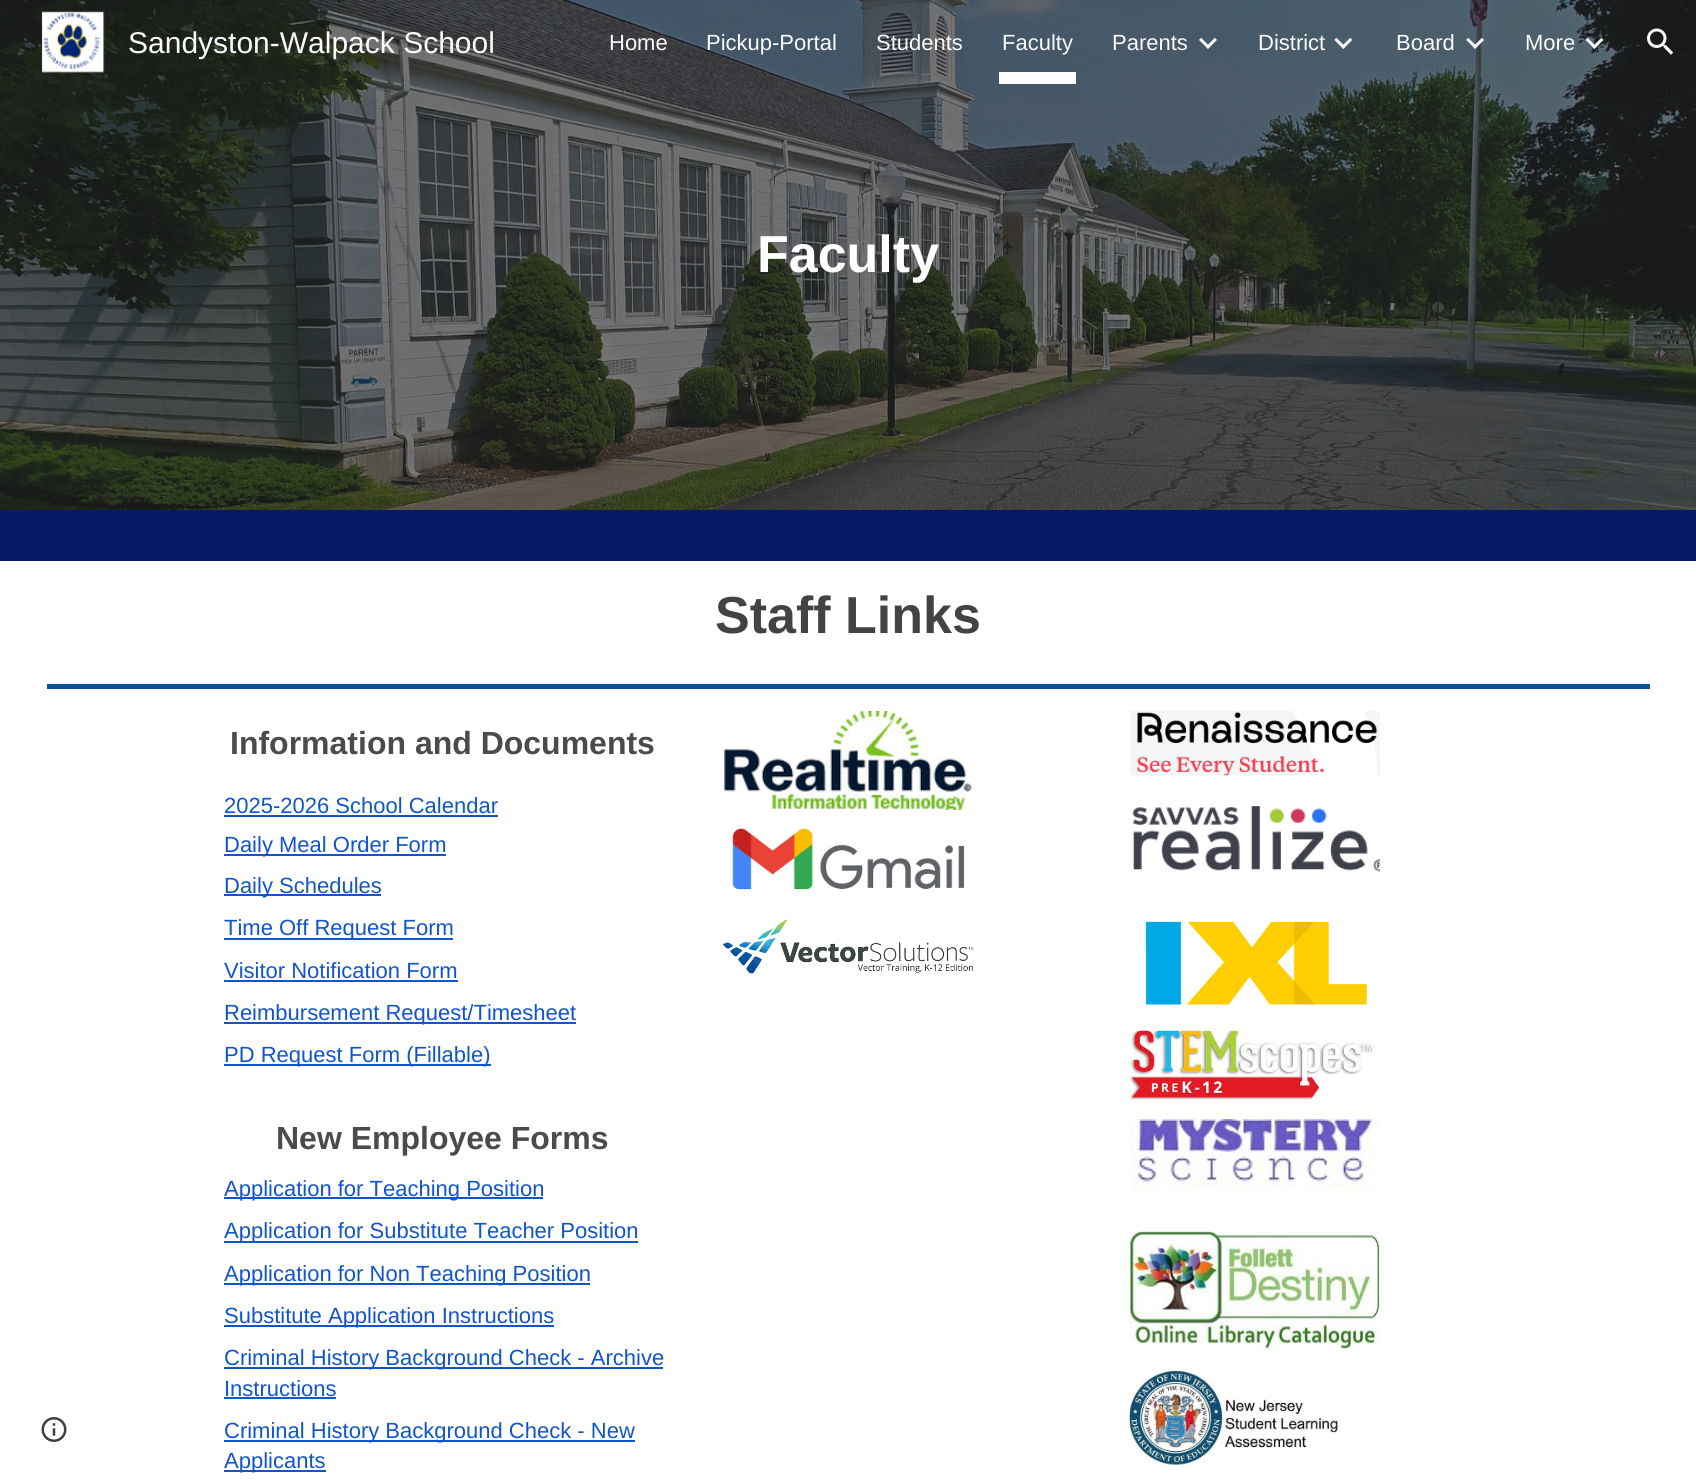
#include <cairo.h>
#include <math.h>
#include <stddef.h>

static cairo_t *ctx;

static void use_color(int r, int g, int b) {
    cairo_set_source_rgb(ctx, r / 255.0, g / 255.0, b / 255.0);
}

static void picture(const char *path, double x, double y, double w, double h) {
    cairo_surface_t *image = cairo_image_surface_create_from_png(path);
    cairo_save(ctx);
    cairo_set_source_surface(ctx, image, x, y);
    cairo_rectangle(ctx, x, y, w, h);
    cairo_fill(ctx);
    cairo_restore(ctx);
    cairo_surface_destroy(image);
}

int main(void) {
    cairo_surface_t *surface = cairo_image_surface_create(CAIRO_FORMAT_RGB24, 1696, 1480);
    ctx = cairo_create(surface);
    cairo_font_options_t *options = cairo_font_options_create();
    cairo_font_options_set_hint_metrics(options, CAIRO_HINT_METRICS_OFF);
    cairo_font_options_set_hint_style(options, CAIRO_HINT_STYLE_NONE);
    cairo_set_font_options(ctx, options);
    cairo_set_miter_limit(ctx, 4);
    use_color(255, 255, 255);
    cairo_paint(ctx);
    picture("img8.png", 0, 0, 1696, 510);
    picture("img1.png", 41, 11, 64, 62);
    cairo_select_font_face(ctx, "Liberation Sans", CAIRO_FONT_SLANT_NORMAL, CAIRO_FONT_WEIGHT_NORMAL);
    cairo_set_font_size(ctx, 30);
    use_color(249, 249, 249);
    cairo_move_to(ctx, 128, 53);
    cairo_show_text(ctx, "Sandyston-Walpack School");
    cairo_set_font_size(ctx, 22);
    cairo_move_to(ctx, 609, 50);
    cairo_show_text(ctx, "Home");
    cairo_move_to(ctx, 706, 50);
    cairo_show_text(ctx, "Pickup-Portal");
    cairo_move_to(ctx, 876, 50);
    cairo_show_text(ctx, "Students");
    use_color(255, 255, 255);
    cairo_rectangle(ctx, 999, 72, 77, 12);
    cairo_fill(ctx);
    use_color(249, 249, 249);
    cairo_move_to(ctx, 1002, 50);
    cairo_show_text(ctx, "Faculty");
    cairo_move_to(ctx, 1112, 50);
    cairo_show_text(ctx, "Parents");
    picture("img2.png", 1199, 37, 18, 12);
    cairo_move_to(ctx, 1258, 50);
    cairo_show_text(ctx, "District");
    picture("img3.png", 1334, 37, 19, 12);
    cairo_move_to(ctx, 1396, 50);
    cairo_show_text(ctx, "Board");
    picture("img4.png", 1466, 37, 18, 12);
    cairo_move_to(ctx, 1525, 50);
    cairo_show_text(ctx, "More");
    picture("img5.png", 1585, 37, 19, 12);
    picture("img6.png", 1647, 28, 27, 27);
    picture("img7.png", 41, 1417, 26, 25);
    cairo_select_font_face(ctx, "Liberation Sans", CAIRO_FONT_SLANT_NORMAL, CAIRO_FONT_WEIGHT_BOLD);
    cairo_set_font_size(ctx, 52);
    use_color(255, 255, 255);
    cairo_move_to(ctx, 757, 272);
    cairo_show_text(ctx, "Faculty");
    use_color(6, 26, 103);
    cairo_rectangle(ctx, 0, 510, 1696, 51);
    cairo_fill(ctx);
    use_color(67, 67, 67);
    cairo_move_to(ctx, 715, 633);
    cairo_show_text(ctx, "Staff Links");
    use_color(11, 83, 148);
    cairo_rectangle(ctx, 47, 684, 1603, 5);
    cairo_fill(ctx);
    cairo_set_font_size(ctx, 32);
    use_color(76, 74, 74);
    cairo_move_to(ctx, 230, 754);
    cairo_show_text(ctx, "Information and Documents");
    cairo_select_font_face(ctx, "Liberation Sans", CAIRO_FONT_SLANT_NORMAL, CAIRO_FONT_WEIGHT_NORMAL);
    cairo_set_font_size(ctx, 22);
    use_color(17, 85, 204);
    cairo_move_to(ctx, 224, 813);
    cairo_show_text(ctx, "2025-2026 School Calendar");
    cairo_rectangle(ctx, 224, 815, 274, 2);
    cairo_fill(ctx);
    cairo_rectangle(ctx, 224, 854, 222, 2);
    cairo_fill(ctx);
    cairo_move_to(ctx, 224, 852);
    cairo_show_text(ctx, "Daily Meal Order Form");
    cairo_rectangle(ctx, 224, 894, 157, 2);
    cairo_fill(ctx);
    cairo_move_to(ctx, 224, 893);
    cairo_show_text(ctx, "Daily Schedules");
    cairo_rectangle(ctx, 224, 938, 229, 2);
    cairo_fill(ctx);
    cairo_move_to(ctx, 224, 935);
    cairo_show_text(ctx, "Time Off Request Form");
    cairo_move_to(ctx, 224, 978);
    cairo_show_text(ctx, "Visitor Notification Form");
    cairo_rectangle(ctx, 224, 980, 234, 2);
    cairo_fill(ctx);
    cairo_rectangle(ctx, 224, 1022, 352, 2);
    cairo_fill(ctx);
    cairo_move_to(ctx, 224, 1020);
    cairo_show_text(ctx, "Reimbursement Request/Timesheet");
    cairo_rectangle(ctx, 224, 1064, 267, 2);
    cairo_fill(ctx);
    cairo_move_to(ctx, 224, 1062);
    cairo_show_text(ctx, "PD Request Form (Fillable)");
    cairo_select_font_face(ctx, "Liberation Sans", CAIRO_FONT_SLANT_NORMAL, CAIRO_FONT_WEIGHT_BOLD);
    cairo_set_font_size(ctx, 32);
    use_color(76, 74, 74);
    cairo_move_to(ctx, 276, 1149);
    cairo_show_text(ctx, "New Employee Forms");
    use_color(17, 85, 204);
    cairo_rectangle(ctx, 224, 1197, 319, 2);
    cairo_fill(ctx);
    cairo_select_font_face(ctx, "Liberation Sans", CAIRO_FONT_SLANT_NORMAL, CAIRO_FONT_WEIGHT_NORMAL);
    cairo_set_font_size(ctx, 22);
    cairo_move_to(ctx, 224, 1196);
    cairo_show_text(ctx, "Application for Teaching Position");
    cairo_rectangle(ctx, 224, 1241, 414, 2);
    cairo_fill(ctx);
    cairo_move_to(ctx, 224, 1238);
    cairo_show_text(ctx, "Application for Substitute Teacher Position");
    cairo_rectangle(ctx, 224, 1283, 366, 2);
    cairo_fill(ctx);
    cairo_move_to(ctx, 224, 1281);
    cairo_show_text(ctx, "Application for Non Teaching Position");
    cairo_rectangle(ctx, 224, 1325, 330, 2);
    cairo_fill(ctx);
    cairo_move_to(ctx, 224, 1323);
    cairo_show_text(ctx, "Substitute Application Instructions");
    cairo_rectangle(ctx, 224, 1367, 439, 2);
    cairo_fill(ctx);
    cairo_move_to(ctx, 224, 1365);
    cairo_show_text(ctx, "Criminal History Background Check - Archive");
    cairo_move_to(ctx, 224, 1396);
    cairo_show_text(ctx, "Instructions");
    cairo_rectangle(ctx, 224, 1397, 112, 2);
    cairo_fill(ctx);
    cairo_rectangle(ctx, 224, 1440, 411, 2);
    cairo_fill(ctx);
    cairo_move_to(ctx, 224, 1438);
    cairo_show_text(ctx, "Criminal History Background Check - New");
    cairo_rectangle(ctx, 224, 1470, 102, 2);
    cairo_fill(ctx);
    cairo_move_to(ctx, 224, 1468);
    cairo_show_text(ctx, "Applicants");
    picture("img9.png", 724, 711, 249, 99);
    picture("img10.png", 730, 828, 235, 63);
    picture("img11.png", 723, 919, 251, 55);
    picture("img12.png", 1130, 711, 250, 65);
    picture("img13.png", 1132, 806, 248, 66);
    picture("img14.png", 1145, 921, 222, 84);
    picture("img15.png", 1129, 1030, 246, 70);
    picture("img16.png", 1130, 1119, 249, 77);
    picture("img17.png", 1129, 1231, 251, 120);
    picture("img18.png", 1129, 1370, 209, 97);
    cairo_surface_write_to_png(surface, "result.png");
    cairo_font_options_destroy(options);
    cairo_destroy(ctx);
    cairo_surface_destroy(surface);
    return 0;
}
